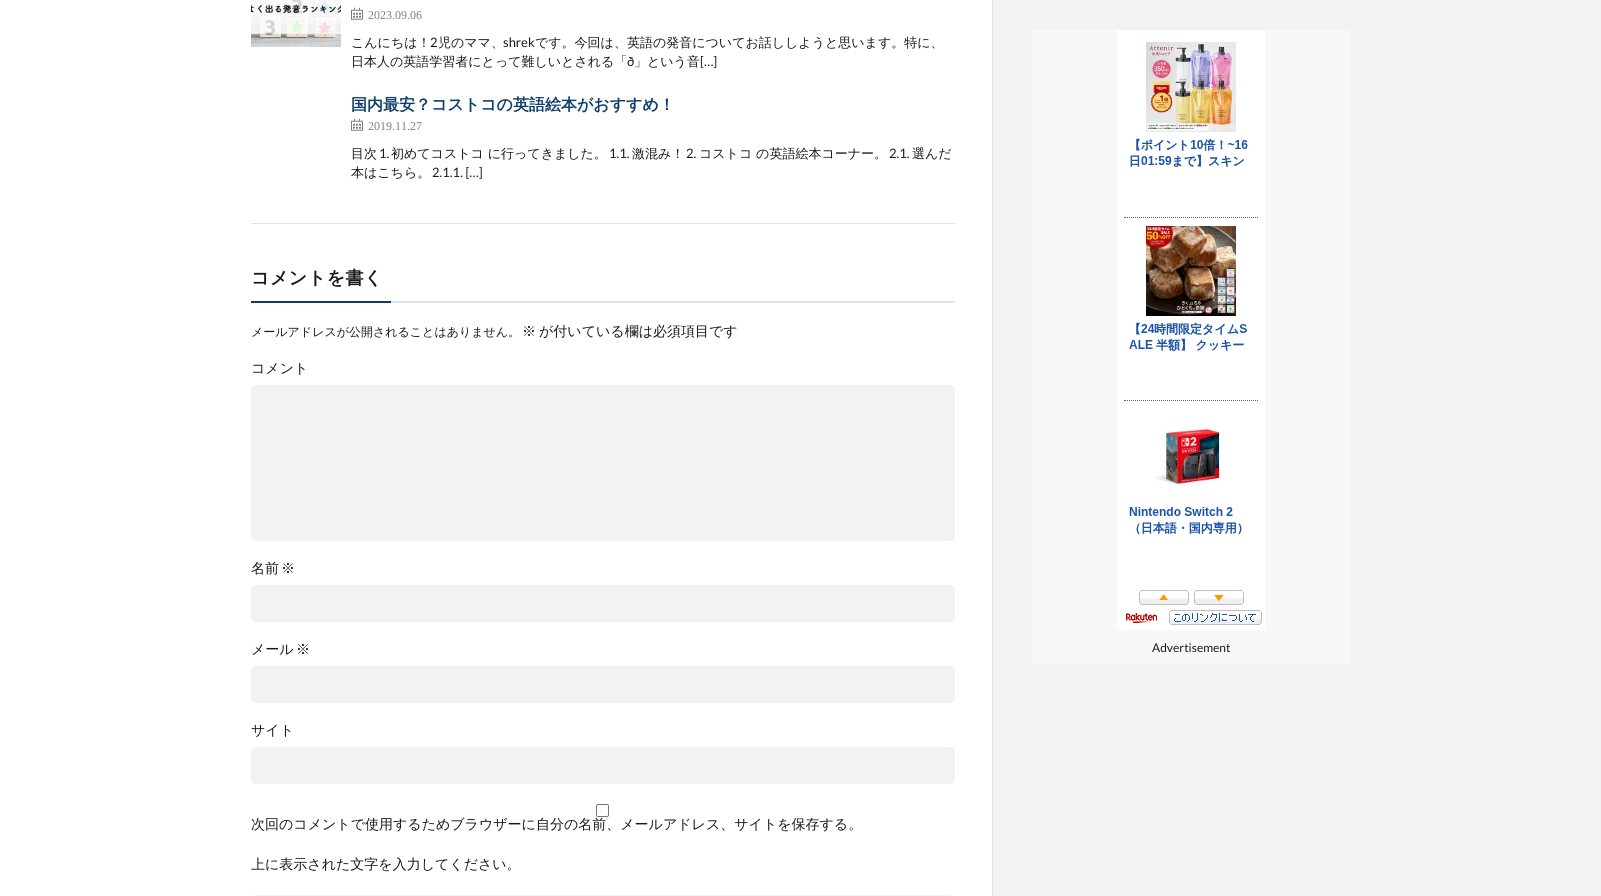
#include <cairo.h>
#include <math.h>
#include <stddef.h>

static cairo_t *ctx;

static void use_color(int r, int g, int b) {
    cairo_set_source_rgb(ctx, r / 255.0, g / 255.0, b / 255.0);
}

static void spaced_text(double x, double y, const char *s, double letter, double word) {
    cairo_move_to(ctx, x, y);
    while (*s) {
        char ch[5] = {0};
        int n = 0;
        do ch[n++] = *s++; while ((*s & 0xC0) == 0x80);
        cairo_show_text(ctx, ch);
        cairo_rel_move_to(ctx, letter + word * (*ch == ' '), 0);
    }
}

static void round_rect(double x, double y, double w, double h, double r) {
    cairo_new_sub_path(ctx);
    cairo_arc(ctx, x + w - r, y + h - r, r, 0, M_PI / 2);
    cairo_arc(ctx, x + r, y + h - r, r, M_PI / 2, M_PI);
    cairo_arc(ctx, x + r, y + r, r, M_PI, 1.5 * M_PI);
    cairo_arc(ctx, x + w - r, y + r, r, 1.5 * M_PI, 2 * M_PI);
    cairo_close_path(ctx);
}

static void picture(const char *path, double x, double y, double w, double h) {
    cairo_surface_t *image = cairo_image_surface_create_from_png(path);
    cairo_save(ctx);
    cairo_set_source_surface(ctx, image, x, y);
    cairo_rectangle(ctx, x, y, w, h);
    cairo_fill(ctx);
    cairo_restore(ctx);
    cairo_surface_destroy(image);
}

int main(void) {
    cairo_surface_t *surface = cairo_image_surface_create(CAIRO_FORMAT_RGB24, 1601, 896);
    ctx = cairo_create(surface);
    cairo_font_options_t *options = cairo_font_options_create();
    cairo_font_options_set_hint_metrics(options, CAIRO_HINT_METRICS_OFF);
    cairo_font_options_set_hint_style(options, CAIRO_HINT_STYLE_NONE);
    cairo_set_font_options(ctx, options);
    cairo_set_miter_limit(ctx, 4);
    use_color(242, 242, 242);
    cairo_paint(ctx);
    use_color(255, 255, 255);
    cairo_rectangle(ctx, 0, 0, 992, 896);
    cairo_fill(ctx);
    use_color(229, 229, 229);
    cairo_rectangle(ctx, 992, 0, 1, 896);
    cairo_fill(ctx);
    picture("img1.png", 251, 0, 90, 47);
    picture("img2.png", 351, 7, 12, 13);
    cairo_select_font_face(ctx, "Liberation Serif", CAIRO_FONT_SLANT_NORMAL, CAIRO_FONT_WEIGHT_NORMAL);
    cairo_set_font_size(ctx, 12);
    use_color(127, 127, 127);
    cairo_move_to(ctx, 368, 19);
    cairo_show_text(ctx, "2023.09.06");
    cairo_select_font_face(ctx, "WenQuanYi Zen Hei Medium", CAIRO_FONT_SLANT_NORMAL, CAIRO_FONT_WEIGHT_NORMAL);
    cairo_set_font_size(ctx, 13);
    use_color(25, 25, 25);
    cairo_move_to(ctx, 351, 47);
    cairo_show_text(ctx, "こんにちは！");
    cairo_select_font_face(ctx, "Lato", CAIRO_FONT_SLANT_NORMAL, CAIRO_FONT_WEIGHT_NORMAL);
    cairo_move_to(ctx, 430, 47);
    cairo_show_text(ctx, "2");
    cairo_select_font_face(ctx, "WenQuanYi Zen Hei Medium", CAIRO_FONT_SLANT_NORMAL, CAIRO_FONT_WEIGHT_NORMAL);
    cairo_move_to(ctx, 438, 47);
    cairo_show_text(ctx, "児のママ、");
    cairo_select_font_face(ctx, "Lato", CAIRO_FONT_SLANT_NORMAL, CAIRO_FONT_WEIGHT_NORMAL);
    cairo_move_to(ctx, 503, 47);
    cairo_show_text(ctx, "shrek");
    cairo_select_font_face(ctx, "WenQuanYi Zen Hei Medium", CAIRO_FONT_SLANT_NORMAL, CAIRO_FONT_WEIGHT_NORMAL);
    cairo_move_to(ctx, 535, 47);
    cairo_show_text(ctx, "です。今回は、英語の発音についてお話ししようと思います。特に、");
    cairo_move_to(ctx, 351, 66);
    cairo_show_text(ctx, "日本人の英語学習者にとって難しいとされる「");
    cairo_select_font_face(ctx, "Lato", CAIRO_FONT_SLANT_NORMAL, CAIRO_FONT_WEIGHT_NORMAL);
    cairo_move_to(ctx, 627, 66);
    cairo_show_text(ctx, "ð");
    cairo_select_font_face(ctx, "WenQuanYi Zen Hei Medium", CAIRO_FONT_SLANT_NORMAL, CAIRO_FONT_WEIGHT_NORMAL);
    cairo_move_to(ctx, 634, 66);
    cairo_show_text(ctx, "」という音");
    cairo_select_font_face(ctx, "Lato", CAIRO_FONT_SLANT_NORMAL, CAIRO_FONT_WEIGHT_NORMAL);
    cairo_move_to(ctx, 700, 66);
    cairo_show_text(ctx, "[…]");
    cairo_select_font_face(ctx, "WenQuanYi Zen Hei", CAIRO_FONT_SLANT_NORMAL, CAIRO_FONT_WEIGHT_BOLD);
    cairo_set_font_size(ctx, 16);
    use_color(14, 61, 105);
    cairo_move_to(ctx, 351, 110);
    cairo_show_text(ctx, "国内最安？コストコの英語絵本がおすすめ！");
    picture("img2.png", 351, 118, 12, 13);
    cairo_select_font_face(ctx, "Liberation Serif", CAIRO_FONT_SLANT_NORMAL, CAIRO_FONT_WEIGHT_NORMAL);
    cairo_set_font_size(ctx, 12);
    use_color(127, 127, 127);
    cairo_move_to(ctx, 368, 130);
    cairo_show_text(ctx, "2019.11.27");
    cairo_select_font_face(ctx, "WenQuanYi Zen Hei Medium", CAIRO_FONT_SLANT_NORMAL, CAIRO_FONT_WEIGHT_NORMAL);
    cairo_set_font_size(ctx, 13);
    use_color(25, 25, 25);
    cairo_move_to(ctx, 351, 158);
    cairo_show_text(ctx, "目次");
    cairo_select_font_face(ctx, "Lato", CAIRO_FONT_SLANT_NORMAL, CAIRO_FONT_WEIGHT_NORMAL);
    cairo_move_to(ctx, 379, 158);
    cairo_show_text(ctx, "1.");
    cairo_select_font_face(ctx, "WenQuanYi Zen Hei Medium", CAIRO_FONT_SLANT_NORMAL, CAIRO_FONT_WEIGHT_NORMAL);
    cairo_move_to(ctx, 391, 158);
    cairo_show_text(ctx, "初めてコストコ に行ってきました。");
    cairo_select_font_face(ctx, "Lato", CAIRO_FONT_SLANT_NORMAL, CAIRO_FONT_WEIGHT_NORMAL);
    cairo_move_to(ctx, 609, 158);
    cairo_show_text(ctx, "1.1.");
    cairo_select_font_face(ctx, "WenQuanYi Zen Hei Medium", CAIRO_FONT_SLANT_NORMAL, CAIRO_FONT_WEIGHT_NORMAL);
    cairo_move_to(ctx, 632, 158);
    cairo_show_text(ctx, "激混み！");
    cairo_select_font_face(ctx, "Lato", CAIRO_FONT_SLANT_NORMAL, CAIRO_FONT_WEIGHT_NORMAL);
    cairo_move_to(ctx, 686, 158);
    cairo_show_text(ctx, "2.");
    cairo_select_font_face(ctx, "WenQuanYi Zen Hei Medium", CAIRO_FONT_SLANT_NORMAL, CAIRO_FONT_WEIGHT_NORMAL);
    cairo_move_to(ctx, 699, 158);
    cairo_show_text(ctx, "コストコ の英語絵本コーナー。");
    cairo_select_font_face(ctx, "Lato", CAIRO_FONT_SLANT_NORMAL, CAIRO_FONT_WEIGHT_NORMAL);
    cairo_move_to(ctx, 889, 158);
    cairo_show_text(ctx, "2.1.");
    cairo_select_font_face(ctx, "WenQuanYi Zen Hei Medium", CAIRO_FONT_SLANT_NORMAL, CAIRO_FONT_WEIGHT_NORMAL);
    cairo_move_to(ctx, 912, 158);
    cairo_show_text(ctx, "選んだ");
    cairo_move_to(ctx, 351, 177);
    cairo_show_text(ctx, "本はこちら。");
    cairo_select_font_face(ctx, "Lato", CAIRO_FONT_SLANT_NORMAL, CAIRO_FONT_WEIGHT_NORMAL);
    cairo_move_to(ctx, 432, 177);
    cairo_show_text(ctx, "2.1.1. […]");
    use_color(229, 229, 229);
    cairo_rectangle(ctx, 251, 223, 704, 1);
    cairo_fill(ctx);
    cairo_rectangle(ctx, 391, 301, 564, 2);
    cairo_fill(ctx);
    cairo_select_font_face(ctx, "WenQuanYi Zen Hei", CAIRO_FONT_SLANT_NORMAL, CAIRO_FONT_WEIGHT_BOLD);
    cairo_set_font_size(ctx, 18);
    use_color(25, 25, 25);
    spaced_text(251, 284, "コメントを書く", 0.5, 0);
    use_color(14, 61, 105);
    cairo_rectangle(ctx, 251, 301, 140, 2);
    cairo_fill(ctx);
    cairo_select_font_face(ctx, "WenQuanYi Zen Hei Medium", CAIRO_FONT_SLANT_NORMAL, CAIRO_FONT_WEIGHT_NORMAL);
    cairo_set_font_size(ctx, 12);
    use_color(25, 25, 25);
    cairo_move_to(ctx, 251, 336);
    cairo_show_text(ctx, "メールアドレスが公開されることはありません。");
    cairo_set_font_size(ctx, 14);
    cairo_move_to(ctx, 522, 336);
    cairo_show_text(ctx, "※");
    cairo_move_to(ctx, 539, 336);
    cairo_show_text(ctx, "が付いている欄は必須項目です");
    cairo_move_to(ctx, 251, 373);
    cairo_show_text(ctx, "コメント");
    use_color(242, 242, 242);
    round_rect(251, 385, 704, 156, 5);
    cairo_fill(ctx);
    use_color(25, 25, 25);
    cairo_move_to(ctx, 251, 573);
    cairo_show_text(ctx, "名前");
    cairo_move_to(ctx, 281, 573);
    cairo_show_text(ctx, "※");
    use_color(242, 242, 242);
    round_rect(251, 585, 704, 37, 5);
    cairo_fill(ctx);
    use_color(25, 25, 25);
    cairo_move_to(ctx, 251, 654);
    cairo_show_text(ctx, "メール");
    cairo_move_to(ctx, 296, 654);
    cairo_show_text(ctx, "※");
    use_color(242, 242, 242);
    round_rect(251, 666, 704, 37, 5);
    cairo_fill(ctx);
    use_color(25, 25, 25);
    cairo_move_to(ctx, 251, 735);
    cairo_show_text(ctx, "サイト");
    use_color(242, 242, 242);
    round_rect(251, 747, 704, 37, 5);
    cairo_fill(ctx);
    round_rect(596.5, 804.5, 12, 12, 1.5);
    use_color(118, 118, 118);
    cairo_set_line_width(ctx, 1);
    cairo_stroke(ctx);
    use_color(25, 25, 25);
    cairo_move_to(ctx, 251, 829);
    cairo_show_text(ctx, "次回のコメントで使用するためブラウザーに自分の名前、メールアドレス、サイトを保存する。");
    cairo_move_to(ctx, 251, 869);
    cairo_show_text(ctx, "上に表示された文字を入力してください。");
    use_color(242, 242, 242);
    round_rect(251, 895, 704, 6, 5);
    cairo_fill(ctx);
    use_color(248, 248, 248);
    cairo_rectangle(ctx, 1032, 30, 319, 634);
    cairo_fill(ctx);
    picture("img3.png", 1117, 30, 148, 600);
    cairo_select_font_face(ctx, "Lato", CAIRO_FONT_SLANT_NORMAL, CAIRO_FONT_WEIGHT_NORMAL);
    cairo_set_font_size(ctx, 12);
    use_color(25, 25, 25);
    cairo_move_to(ctx, 1152, 652);
    cairo_show_text(ctx, "Advertisement");
    cairo_surface_write_to_png(surface, "result.png");
    cairo_font_options_destroy(options);
    cairo_destroy(ctx);
    cairo_surface_destroy(surface);
    return 0;
}
